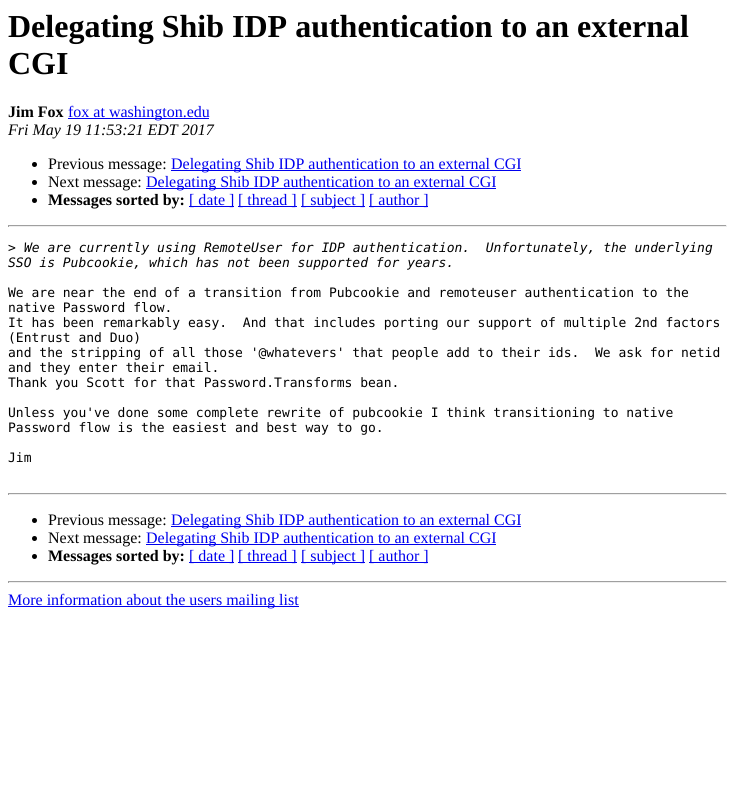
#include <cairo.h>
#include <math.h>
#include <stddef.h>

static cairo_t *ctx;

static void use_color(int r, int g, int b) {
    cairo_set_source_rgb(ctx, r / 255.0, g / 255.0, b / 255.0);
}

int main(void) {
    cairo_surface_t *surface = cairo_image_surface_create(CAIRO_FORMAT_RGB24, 735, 803);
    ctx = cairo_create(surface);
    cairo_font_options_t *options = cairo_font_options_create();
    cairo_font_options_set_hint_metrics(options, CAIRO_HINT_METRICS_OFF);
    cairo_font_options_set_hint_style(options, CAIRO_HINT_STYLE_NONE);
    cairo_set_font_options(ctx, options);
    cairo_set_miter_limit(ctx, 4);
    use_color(255, 255, 255);
    cairo_paint(ctx);
    cairo_select_font_face(ctx, "Liberation Serif", CAIRO_FONT_SLANT_NORMAL, CAIRO_FONT_WEIGHT_BOLD);
    cairo_set_font_size(ctx, 32);
    use_color(0, 0, 0);
    cairo_move_to(ctx, 8, 37);
    cairo_show_text(ctx, "Delegating Shib IDP authentication to an external");
    cairo_move_to(ctx, 8, 74);
    cairo_show_text(ctx, "CGI");
    cairo_set_font_size(ctx, 16);
    cairo_move_to(ctx, 8, 117);
    cairo_show_text(ctx, "Jim Fox");
    use_color(0, 0, 238);
    cairo_rectangle(ctx, 68, 118, 141, 1);
    cairo_fill(ctx);
    cairo_select_font_face(ctx, "Liberation Serif", CAIRO_FONT_SLANT_NORMAL, CAIRO_FONT_WEIGHT_NORMAL);
    cairo_move_to(ctx, 68, 117);
    cairo_show_text(ctx, "fox at washington.edu");
    cairo_select_font_face(ctx, "Liberation Serif", CAIRO_FONT_SLANT_ITALIC, CAIRO_FONT_WEIGHT_NORMAL);
    use_color(0, 0, 0);
    cairo_move_to(ctx, 8, 135);
    cairo_show_text(ctx, "Fri May 19 11:53:21 EDT 2017");
    cairo_new_path(ctx);
    cairo_arc(ctx, 34.5, 164.5, 2.5, 0, 2 * M_PI);
    cairo_fill(ctx);
    cairo_select_font_face(ctx, "Liberation Serif", CAIRO_FONT_SLANT_NORMAL, CAIRO_FONT_WEIGHT_NORMAL);
    cairo_move_to(ctx, 48, 169);
    cairo_show_text(ctx, "Previous message:");
    use_color(0, 0, 238);
    cairo_rectangle(ctx, 171, 170, 350, 1);
    cairo_fill(ctx);
    cairo_move_to(ctx, 171, 169);
    cairo_show_text(ctx, "Delegating Shib IDP authentication to an external CGI");
    use_color(0, 0, 0);
    cairo_new_path(ctx);
    cairo_arc(ctx, 34.5, 182.5, 2.5, 0, 2 * M_PI);
    cairo_fill(ctx);
    cairo_move_to(ctx, 48, 187);
    cairo_show_text(ctx, "Next message:");
    use_color(0, 0, 238);
    cairo_rectangle(ctx, 146, 188, 350, 1);
    cairo_fill(ctx);
    cairo_move_to(ctx, 146, 187);
    cairo_show_text(ctx, "Delegating Shib IDP authentication to an external CGI");
    use_color(0, 0, 0);
    cairo_new_path(ctx);
    cairo_arc(ctx, 34.5, 200.5, 2.5, 0, 2 * M_PI);
    cairo_fill(ctx);
    cairo_select_font_face(ctx, "Liberation Serif", CAIRO_FONT_SLANT_NORMAL, CAIRO_FONT_WEIGHT_BOLD);
    cairo_move_to(ctx, 48, 205);
    cairo_show_text(ctx, "Messages sorted by:");
    use_color(0, 0, 238);
    cairo_rectangle(ctx, 189, 206, 45, 1);
    cairo_fill(ctx);
    cairo_select_font_face(ctx, "Liberation Serif", CAIRO_FONT_SLANT_NORMAL, CAIRO_FONT_WEIGHT_NORMAL);
    cairo_move_to(ctx, 189, 205);
    cairo_show_text(ctx, "[ date ]");
    cairo_rectangle(ctx, 238, 206, 59, 1);
    cairo_fill(ctx);
    cairo_move_to(ctx, 238, 205);
    cairo_show_text(ctx, "[ thread ]");
    cairo_rectangle(ctx, 301, 206, 64, 1);
    cairo_fill(ctx);
    cairo_move_to(ctx, 301, 205);
    cairo_show_text(ctx, "[ subject ]");
    cairo_rectangle(ctx, 369, 206, 59, 1);
    cairo_fill(ctx);
    cairo_move_to(ctx, 369, 205);
    cairo_show_text(ctx, "[ author ]");
    use_color(159, 159, 159);
    cairo_rectangle(ctx, 8, 225, 719, 1);
    cairo_fill(ctx);
    use_color(238, 238, 238);
    cairo_rectangle(ctx, 726, 225, 1, 2);
    cairo_fill(ctx);
    cairo_rectangle(ctx, 8, 226, 719, 1);
    cairo_fill(ctx);
    use_color(159, 159, 159);
    cairo_rectangle(ctx, 8, 225, 1, 2);
    cairo_fill(ctx);
    cairo_select_font_face(ctx, "DejaVu Sans Mono", CAIRO_FONT_SLANT_NORMAL, CAIRO_FONT_WEIGHT_NORMAL);
    cairo_set_font_size(ctx, 13);
    use_color(0, 0, 0);
    cairo_move_to(ctx, 8, 252);
    cairo_show_text(ctx, ">");
    cairo_select_font_face(ctx, "DejaVu Sans Mono", CAIRO_FONT_SLANT_ITALIC, CAIRO_FONT_WEIGHT_NORMAL);
    cairo_move_to(ctx, 24, 252);
    cairo_show_text(ctx, "We are currently using RemoteUser for IDP authentication.  Unfortunately, the underlying");
    cairo_move_to(ctx, 8, 267);
    cairo_show_text(ctx, "SSO is Pubcookie, which has not been supported for years.");
    cairo_select_font_face(ctx, "DejaVu Sans Mono", CAIRO_FONT_SLANT_NORMAL, CAIRO_FONT_WEIGHT_NORMAL);
    cairo_move_to(ctx, 8, 297);
    cairo_show_text(ctx, "We are near the end of a transition from Pubcookie and remoteuser authentication to the");
    cairo_move_to(ctx, 8, 312);
    cairo_show_text(ctx, "native Password flow.");
    cairo_move_to(ctx, 8, 327);
    cairo_show_text(ctx, "It has been remarkably easy.  And that includes porting our support of multiple 2nd factors");
    cairo_move_to(ctx, 8, 342);
    cairo_show_text(ctx, "(Entrust and Duo)");
    cairo_move_to(ctx, 8, 357);
    cairo_show_text(ctx, "and the stripping of all those '@whatevers' that people add to their ids.  We ask for netid");
    cairo_move_to(ctx, 8, 372);
    cairo_show_text(ctx, "and they enter their email.");
    cairo_move_to(ctx, 8, 387);
    cairo_show_text(ctx, "Thank you Scott for that Password.Transforms bean.");
    cairo_move_to(ctx, 8, 417);
    cairo_show_text(ctx, "Unless you've done some complete rewrite of pubcookie I think transitioning to native");
    cairo_move_to(ctx, 8, 432);
    cairo_show_text(ctx, "Password flow is the easiest and best way to go.");
    cairo_move_to(ctx, 8, 462);
    cairo_show_text(ctx, "Jim");
    use_color(159, 159, 159);
    cairo_rectangle(ctx, 8, 493, 719, 1);
    cairo_fill(ctx);
    use_color(238, 238, 238);
    cairo_rectangle(ctx, 726, 493, 1, 2);
    cairo_fill(ctx);
    cairo_rectangle(ctx, 8, 494, 719, 1);
    cairo_fill(ctx);
    use_color(159, 159, 159);
    cairo_rectangle(ctx, 8, 493, 1, 2);
    cairo_fill(ctx);
    use_color(0, 0, 0);
    cairo_arc(ctx, 34.5, 520.5, 2.5, 0, 2 * M_PI);
    cairo_fill(ctx);
    cairo_select_font_face(ctx, "Liberation Serif", CAIRO_FONT_SLANT_NORMAL, CAIRO_FONT_WEIGHT_NORMAL);
    cairo_set_font_size(ctx, 16);
    cairo_move_to(ctx, 48, 525);
    cairo_show_text(ctx, "Previous message:");
    use_color(0, 0, 238);
    cairo_rectangle(ctx, 171, 526, 350, 1);
    cairo_fill(ctx);
    cairo_move_to(ctx, 171, 525);
    cairo_show_text(ctx, "Delegating Shib IDP authentication to an external CGI");
    use_color(0, 0, 0);
    cairo_new_path(ctx);
    cairo_arc(ctx, 34.5, 538.5, 2.5, 0, 2 * M_PI);
    cairo_fill(ctx);
    cairo_move_to(ctx, 48, 543);
    cairo_show_text(ctx, "Next message:");
    use_color(0, 0, 238);
    cairo_rectangle(ctx, 146, 544, 350, 1);
    cairo_fill(ctx);
    cairo_move_to(ctx, 146, 543);
    cairo_show_text(ctx, "Delegating Shib IDP authentication to an external CGI");
    use_color(0, 0, 0);
    cairo_new_path(ctx);
    cairo_arc(ctx, 34.5, 556.5, 2.5, 0, 2 * M_PI);
    cairo_fill(ctx);
    cairo_select_font_face(ctx, "Liberation Serif", CAIRO_FONT_SLANT_NORMAL, CAIRO_FONT_WEIGHT_BOLD);
    cairo_move_to(ctx, 48, 561);
    cairo_show_text(ctx, "Messages sorted by:");
    use_color(0, 0, 238);
    cairo_rectangle(ctx, 189, 562, 45, 1);
    cairo_fill(ctx);
    cairo_select_font_face(ctx, "Liberation Serif", CAIRO_FONT_SLANT_NORMAL, CAIRO_FONT_WEIGHT_NORMAL);
    cairo_move_to(ctx, 189, 561);
    cairo_show_text(ctx, "[ date ]");
    cairo_rectangle(ctx, 238, 562, 59, 1);
    cairo_fill(ctx);
    cairo_move_to(ctx, 238, 561);
    cairo_show_text(ctx, "[ thread ]");
    cairo_rectangle(ctx, 301, 562, 64, 1);
    cairo_fill(ctx);
    cairo_move_to(ctx, 301, 561);
    cairo_show_text(ctx, "[ subject ]");
    cairo_rectangle(ctx, 369, 562, 59, 1);
    cairo_fill(ctx);
    cairo_move_to(ctx, 369, 561);
    cairo_show_text(ctx, "[ author ]");
    use_color(159, 159, 159);
    cairo_rectangle(ctx, 8, 581, 719, 1);
    cairo_fill(ctx);
    use_color(238, 238, 238);
    cairo_rectangle(ctx, 726, 581, 1, 2);
    cairo_fill(ctx);
    cairo_rectangle(ctx, 8, 582, 719, 1);
    cairo_fill(ctx);
    use_color(159, 159, 159);
    cairo_rectangle(ctx, 8, 581, 1, 2);
    cairo_fill(ctx);
    use_color(0, 0, 238);
    cairo_rectangle(ctx, 8, 606, 291, 1);
    cairo_fill(ctx);
    cairo_move_to(ctx, 8, 605);
    cairo_show_text(ctx, "More information about the users mailing list");
    cairo_surface_write_to_png(surface, "result.png");
    cairo_font_options_destroy(options);
    cairo_destroy(ctx);
    cairo_surface_destroy(surface);
    return 0;
}
